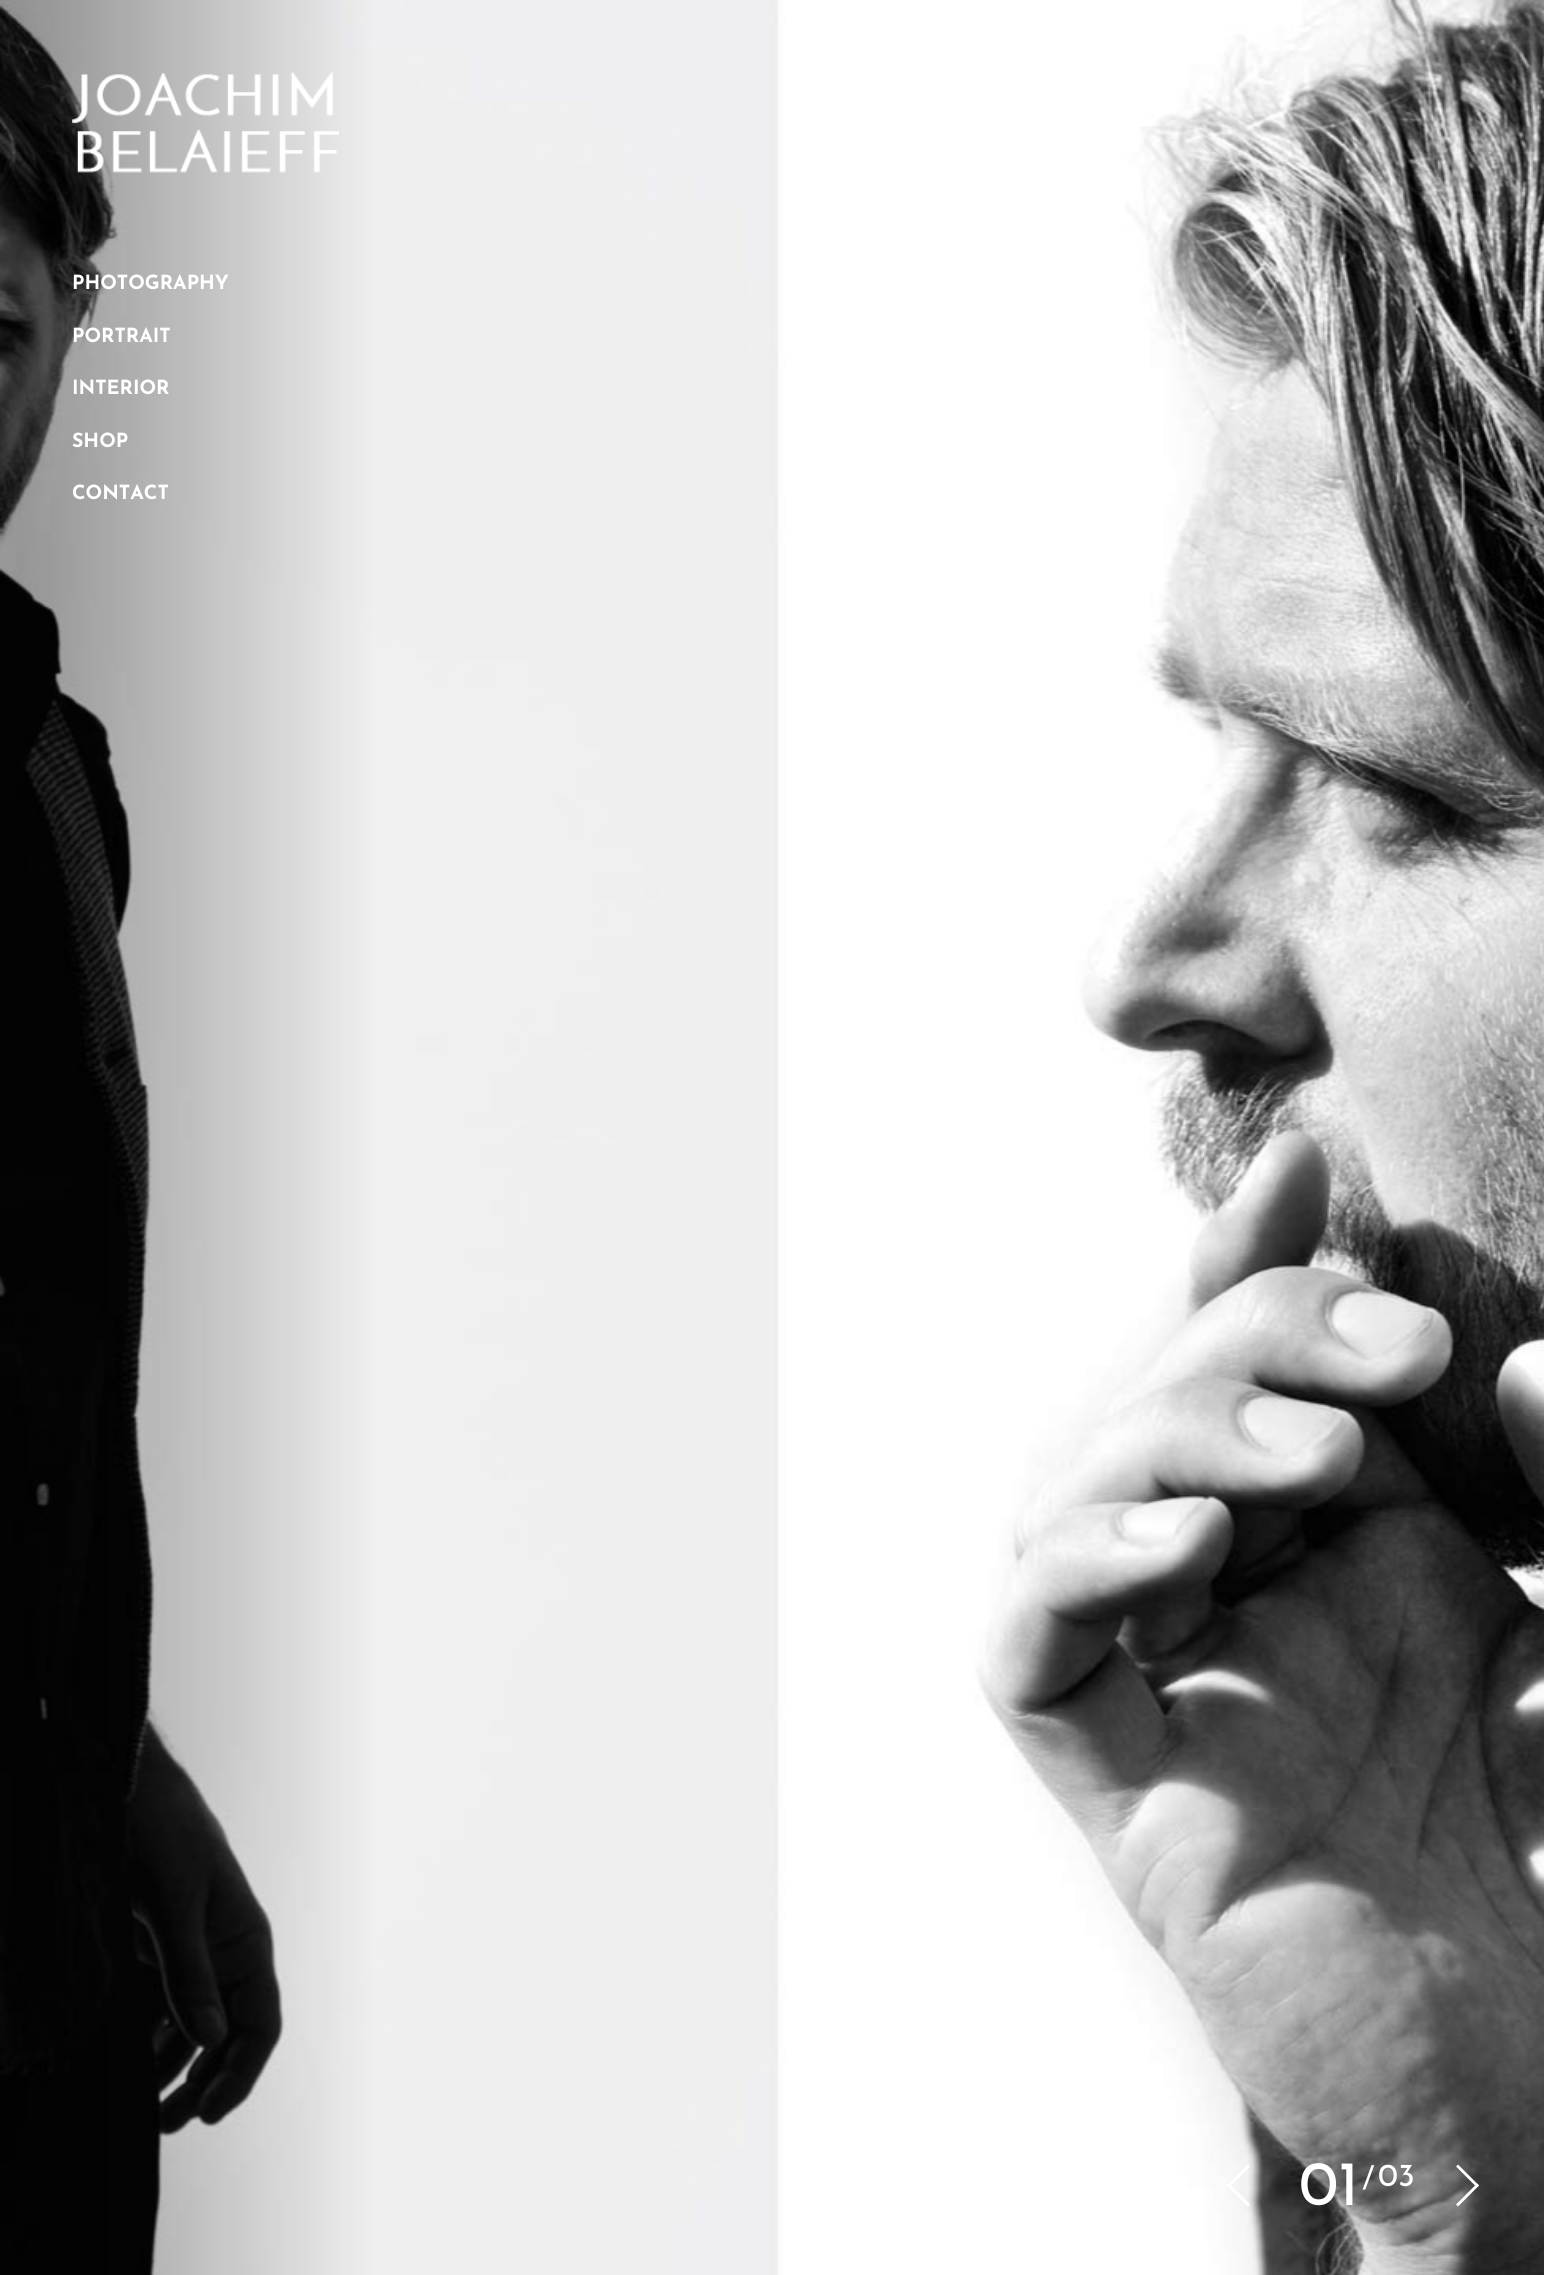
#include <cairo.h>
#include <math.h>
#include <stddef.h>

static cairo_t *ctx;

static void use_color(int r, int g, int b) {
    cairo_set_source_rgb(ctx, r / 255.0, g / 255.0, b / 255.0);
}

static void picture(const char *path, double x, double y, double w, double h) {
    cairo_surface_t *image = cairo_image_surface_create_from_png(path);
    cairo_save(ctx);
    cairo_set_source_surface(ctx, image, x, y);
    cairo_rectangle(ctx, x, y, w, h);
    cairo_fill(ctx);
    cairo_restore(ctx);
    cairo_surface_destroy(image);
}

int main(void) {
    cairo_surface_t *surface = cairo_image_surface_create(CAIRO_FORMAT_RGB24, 1544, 2275);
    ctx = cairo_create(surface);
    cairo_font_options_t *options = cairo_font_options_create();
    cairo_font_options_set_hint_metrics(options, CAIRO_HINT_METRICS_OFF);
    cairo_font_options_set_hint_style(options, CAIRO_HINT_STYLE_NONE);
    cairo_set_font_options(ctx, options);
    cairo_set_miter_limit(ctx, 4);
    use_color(255, 255, 255);
    cairo_paint(ctx);
    picture("img2.png", 0, 0, 1544, 2275);
    picture("img1.png", 72, 72, 267, 101);
    cairo_select_font_face(ctx, "Josefin Sans", CAIRO_FONT_SLANT_NORMAL, CAIRO_FONT_WEIGHT_BOLD);
    cairo_set_font_size(ctx, 19.5);
    use_color(255, 255, 255);
    cairo_move_to(ctx, 72, 289);
    cairo_show_text(ctx, "PHOTOGRAPHY");
    cairo_move_to(ctx, 72, 342);
    cairo_show_text(ctx, "PORTRAIT");
    cairo_move_to(ctx, 72, 394);
    cairo_show_text(ctx, "INTERIOR");
    cairo_move_to(ctx, 72, 447);
    cairo_show_text(ctx, "SHOP");
    cairo_move_to(ctx, 72, 499);
    cairo_show_text(ctx, "CONTACT");
    cairo_new_path(ctx);
    cairo_move_to(ctx, 1229, 2183.5);
    cairo_line_to(ctx, 1250, 2204.5);
    cairo_line_to(ctx, 1248, 2206.5);
    cairo_line_to(ctx, 1226.5, 2185.5);
    cairo_close_path(ctx);
    cairo_fill(ctx);
    cairo_new_path(ctx);
    cairo_move_to(ctx, 1248, 2164.5);
    cairo_line_to(ctx, 1250, 2166.5);
    cairo_line_to(ctx, 1229, 2187.5);
    cairo_line_to(ctx, 1226.5, 2185.5);
    cairo_close_path(ctx);
    cairo_fill(ctx);
    cairo_select_font_face(ctx, "Josefin Sans", CAIRO_FONT_SLANT_NORMAL, CAIRO_FONT_WEIGHT_NORMAL);
    cairo_set_font_size(ctx, 63);
    cairo_move_to(ctx, 1299, 2205);
    cairo_show_text(ctx, "01");
    cairo_set_font_size(ctx, 32);
    cairo_move_to(ctx, 1362, 2189);
    cairo_show_text(ctx, "/");
    cairo_move_to(ctx, 1378, 2186);
    cairo_show_text(ctx, "03");
    cairo_new_path(ctx);
    cairo_move_to(ctx, 1456, 2166.5);
    cairo_line_to(ctx, 1458, 2164.5);
    cairo_line_to(ctx, 1479, 2185.5);
    cairo_line_to(ctx, 1477, 2187.5);
    cairo_close_path(ctx);
    cairo_fill(ctx);
    cairo_new_path(ctx);
    cairo_move_to(ctx, 1456, 2204.5);
    cairo_line_to(ctx, 1477, 2183.5);
    cairo_line_to(ctx, 1479, 2185.5);
    cairo_line_to(ctx, 1458, 2206.5);
    cairo_close_path(ctx);
    cairo_fill(ctx);
    cairo_surface_write_to_png(surface, "result.png");
    cairo_font_options_destroy(options);
    cairo_destroy(ctx);
    cairo_surface_destroy(surface);
    return 0;
}
